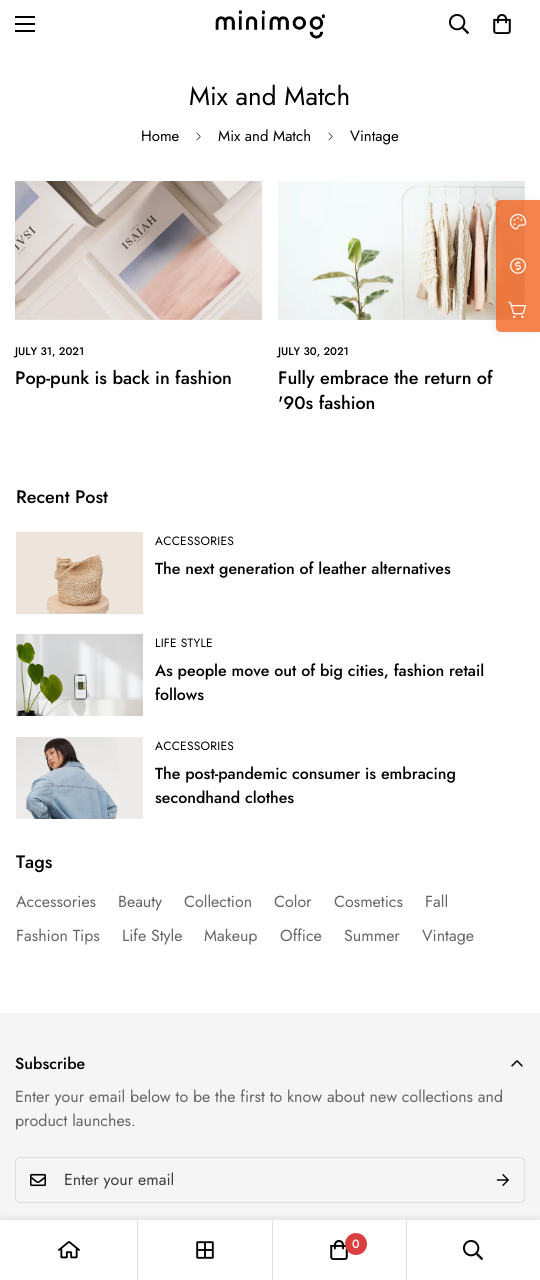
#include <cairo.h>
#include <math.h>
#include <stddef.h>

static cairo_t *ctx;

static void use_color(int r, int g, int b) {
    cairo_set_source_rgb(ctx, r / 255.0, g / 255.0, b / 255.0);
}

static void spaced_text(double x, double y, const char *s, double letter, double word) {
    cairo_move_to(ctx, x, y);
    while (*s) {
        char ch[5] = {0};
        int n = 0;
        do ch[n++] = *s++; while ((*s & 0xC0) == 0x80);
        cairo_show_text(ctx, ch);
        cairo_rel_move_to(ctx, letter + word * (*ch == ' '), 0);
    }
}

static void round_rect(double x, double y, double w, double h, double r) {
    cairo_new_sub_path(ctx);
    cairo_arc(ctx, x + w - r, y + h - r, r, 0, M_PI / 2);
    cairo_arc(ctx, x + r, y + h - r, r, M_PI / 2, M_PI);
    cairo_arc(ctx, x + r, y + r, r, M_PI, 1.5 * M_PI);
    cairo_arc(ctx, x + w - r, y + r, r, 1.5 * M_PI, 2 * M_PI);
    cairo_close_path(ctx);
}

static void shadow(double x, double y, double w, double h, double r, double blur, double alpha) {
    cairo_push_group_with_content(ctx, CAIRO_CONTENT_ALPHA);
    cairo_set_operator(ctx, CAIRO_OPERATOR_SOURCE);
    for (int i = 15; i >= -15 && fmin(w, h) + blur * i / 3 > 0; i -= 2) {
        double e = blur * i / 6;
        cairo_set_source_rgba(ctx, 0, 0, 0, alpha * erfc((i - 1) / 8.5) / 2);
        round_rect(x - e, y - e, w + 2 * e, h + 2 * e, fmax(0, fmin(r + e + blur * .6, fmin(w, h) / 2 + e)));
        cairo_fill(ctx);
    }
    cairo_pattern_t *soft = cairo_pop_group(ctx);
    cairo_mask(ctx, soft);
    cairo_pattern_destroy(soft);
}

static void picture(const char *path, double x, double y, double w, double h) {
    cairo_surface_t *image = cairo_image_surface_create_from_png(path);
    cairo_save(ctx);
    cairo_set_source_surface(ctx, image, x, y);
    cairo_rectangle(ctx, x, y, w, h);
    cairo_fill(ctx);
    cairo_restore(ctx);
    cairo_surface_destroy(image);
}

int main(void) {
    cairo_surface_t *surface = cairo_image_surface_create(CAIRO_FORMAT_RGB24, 540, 1280);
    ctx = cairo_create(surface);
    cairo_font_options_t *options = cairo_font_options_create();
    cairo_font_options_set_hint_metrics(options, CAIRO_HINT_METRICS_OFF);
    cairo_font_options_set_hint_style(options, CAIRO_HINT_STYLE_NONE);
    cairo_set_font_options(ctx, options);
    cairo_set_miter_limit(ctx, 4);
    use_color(255, 255, 255);
    cairo_paint(ctx);
    use_color(0, 0, 0);
    cairo_rectangle(ctx, 15, 23, 20, 2);
    cairo_fill(ctx);
    cairo_rectangle(ctx, 15, 16, 20, 2);
    cairo_fill(ctx);
    cairo_rectangle(ctx, 15, 30, 20, 2);
    cairo_fill(ctx);
    picture("img1.png", 215, 10, 110, 29);
    picture("img2.png", 449, 14, 20, 20);
    picture("img3.png", 493, 14, 18, 20);
    cairo_select_font_face(ctx, "Jost", CAIRO_FONT_SLANT_NORMAL, CAIRO_FONT_WEIGHT_NORMAL);
    cairo_set_font_size(ctx, 26);
    cairo_move_to(ctx, 189, 105);
    cairo_show_text(ctx, "Mix and Match");
    cairo_set_font_size(ctx, 15);
    cairo_move_to(ctx, 141, 141);
    cairo_show_text(ctx, "Home");
    picture("img4.png", 196, 132, 5, 9);
    cairo_move_to(ctx, 218, 141);
    cairo_show_text(ctx, "Mix and Match");
    picture("img4.png", 328, 132, 5, 9);
    cairo_move_to(ctx, 350, 141);
    cairo_show_text(ctx, "Vintage");
    picture("img5.png", 15, 181, 247, 139);
    cairo_select_font_face(ctx, "Jost Medium", CAIRO_FONT_SLANT_NORMAL, CAIRO_FONT_WEIGHT_NORMAL);
    cairo_set_font_size(ctx, 11);
    cairo_move_to(ctx, 15, 355);
    cairo_show_text(ctx, "JULY 31, 2021");
    cairo_set_font_size(ctx, 18);
    cairo_move_to(ctx, 15, 384);
    cairo_show_text(ctx, "Pop-punk is back in fashion");
    picture("img6.png", 278, 181, 247, 139);
    cairo_set_font_size(ctx, 11);
    cairo_move_to(ctx, 278, 355);
    cairo_show_text(ctx, "JULY 30, 2021");
    cairo_set_font_size(ctx, 18);
    cairo_move_to(ctx, 278, 384);
    cairo_show_text(ctx, "Fully embrace the return of");
    cairo_move_to(ctx, 278, 409);
    cairo_show_text(ctx, "'90s fashion");
    cairo_move_to(ctx, 16, 503);
    cairo_show_text(ctx, "Recent Post");
    picture("img7.png", 16, 532, 127, 82);
    cairo_select_font_face(ctx, "Jost", CAIRO_FONT_SLANT_NORMAL, CAIRO_FONT_WEIGHT_NORMAL);
    cairo_set_font_size(ctx, 12);
    spaced_text(155, 545, "ACCESSORIES", 0.25, 0);
    cairo_select_font_face(ctx, "Jost Medium", CAIRO_FONT_SLANT_NORMAL, CAIRO_FONT_WEIGHT_NORMAL);
    cairo_set_font_size(ctx, 16);
    cairo_move_to(ctx, 155, 574);
    cairo_show_text(ctx, "The next generation of leather alternatives");
    picture("img8.png", 16, 634, 127, 82);
    cairo_select_font_face(ctx, "Jost", CAIRO_FONT_SLANT_NORMAL, CAIRO_FONT_WEIGHT_NORMAL);
    cairo_set_font_size(ctx, 12);
    spaced_text(155, 647, "LIFE STYLE", 0.25, 0);
    cairo_select_font_face(ctx, "Jost Medium", CAIRO_FONT_SLANT_NORMAL, CAIRO_FONT_WEIGHT_NORMAL);
    cairo_set_font_size(ctx, 16);
    cairo_move_to(ctx, 155, 676);
    cairo_show_text(ctx, "As people move out of big cities, fashion retail");
    cairo_move_to(ctx, 155, 700);
    cairo_show_text(ctx, "follows");
    picture("img9.png", 16, 737, 127, 82);
    cairo_select_font_face(ctx, "Jost", CAIRO_FONT_SLANT_NORMAL, CAIRO_FONT_WEIGHT_NORMAL);
    cairo_set_font_size(ctx, 12);
    spaced_text(155, 750, "ACCESSORIES", 0.25, 0);
    cairo_select_font_face(ctx, "Jost Medium", CAIRO_FONT_SLANT_NORMAL, CAIRO_FONT_WEIGHT_NORMAL);
    cairo_set_font_size(ctx, 16);
    cairo_move_to(ctx, 155, 779);
    cairo_show_text(ctx, "The post-pandemic consumer is embracing");
    cairo_move_to(ctx, 155, 803);
    cairo_show_text(ctx, "secondhand clothes");
    cairo_set_font_size(ctx, 18);
    cairo_move_to(ctx, 16, 868);
    cairo_show_text(ctx, "Tags");
    cairo_select_font_face(ctx, "Jost", CAIRO_FONT_SLANT_NORMAL, CAIRO_FONT_WEIGHT_NORMAL);
    cairo_set_font_size(ctx, 16);
    use_color(102, 102, 102);
    cairo_move_to(ctx, 16, 907);
    cairo_show_text(ctx, "Accessories");
    cairo_move_to(ctx, 118, 907);
    cairo_show_text(ctx, "Beauty");
    cairo_move_to(ctx, 184, 907);
    cairo_show_text(ctx, "Collection");
    cairo_move_to(ctx, 274, 907);
    cairo_show_text(ctx, "Color");
    cairo_move_to(ctx, 334, 907);
    cairo_show_text(ctx, "Cosmetics");
    cairo_move_to(ctx, 425, 907);
    cairo_show_text(ctx, "Fall");
    cairo_move_to(ctx, 16, 941);
    cairo_show_text(ctx, "Fashion Tips");
    cairo_move_to(ctx, 122, 941);
    cairo_show_text(ctx, "Life Style");
    cairo_move_to(ctx, 204, 941);
    cairo_show_text(ctx, "Makeup");
    cairo_move_to(ctx, 280, 941);
    cairo_show_text(ctx, "Office");
    cairo_move_to(ctx, 344, 941);
    cairo_show_text(ctx, "Summer");
    cairo_move_to(ctx, 422, 941);
    cairo_show_text(ctx, "Vintage");
    cairo_save(ctx);
    cairo_set_fill_rule(ctx, CAIRO_FILL_RULE_EVEN_ODD);
    cairo_new_path(ctx);
    cairo_move_to(ctx, 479, 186);
    cairo_line_to(ctx, 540, 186);
    cairo_line_to(ctx, 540, 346);
    cairo_line_to(ctx, 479, 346);
    cairo_close_path(ctx);
    cairo_move_to(ctx, 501, 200);
    cairo_line_to(ctx, 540, 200);
    cairo_line_to(ctx, 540, 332);
    cairo_line_to(ctx, 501, 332);
    cairo_curve_to(ctx, 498, 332, 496, 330, 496, 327);
    cairo_line_to(ctx, 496, 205);
    cairo_curve_to(ctx, 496, 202, 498, 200, 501, 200);
    cairo_close_path(ctx);
    cairo_clip(ctx);
    use_color(0, 0, 0);
    shadow(495, 202, 40, 128, 3, 5, 0.1);
    cairo_restore(ctx);
    cairo_set_source_rgba(ctx, 0.949, 0.392, 0.133, 0.8);
    cairo_new_path(ctx);
    cairo_move_to(ctx, 501, 200);
    cairo_line_to(ctx, 540, 200);
    cairo_line_to(ctx, 540, 332);
    cairo_line_to(ctx, 501, 332);
    cairo_curve_to(ctx, 498, 332, 496, 330, 496, 327);
    cairo_line_to(ctx, 496, 205);
    cairo_curve_to(ctx, 496, 202, 498, 200, 501, 200);
    cairo_close_path(ctx);
    cairo_fill(ctx);
    picture("img10.png", 509, 213, 18, 17);
    picture("img11.png", 510, 258, 16, 16);
    picture("img12.png", 508, 301, 19, 18);
    use_color(245, 245, 245);
    cairo_rectangle(ctx, 0, 1013, 540, 207);
    cairo_fill(ctx);
    cairo_select_font_face(ctx, "Jost Medium", CAIRO_FONT_SLANT_NORMAL, CAIRO_FONT_WEIGHT_NORMAL);
    use_color(0, 0, 0);
    cairo_move_to(ctx, 15, 1069);
    cairo_show_text(ctx, "Subscribe");
    picture("img13.png", 511, 1060, 12, 7);
    cairo_select_font_face(ctx, "Jost", CAIRO_FONT_SLANT_NORMAL, CAIRO_FONT_WEIGHT_NORMAL);
    use_color(102, 102, 102);
    cairo_move_to(ctx, 15, 1102);
    cairo_show_text(ctx, "Enter your email below to be the first to know about new collections and");
    cairo_move_to(ctx, 15, 1126);
    cairo_show_text(ctx, "product launches.");
    round_rect(15.5, 1157.5, 509, 45, 4.5);
    use_color(222, 222, 222);
    cairo_set_line_width(ctx, 1);
    cairo_stroke(ctx);
    picture("img14.png", 30, 1173, 16, 14);
    use_color(61, 61, 61);
    cairo_move_to(ctx, 64, 1185);
    cairo_show_text(ctx, "Enter your email");
    picture("img15.png", 496, 1174, 13, 12);
    use_color(0, 0, 0);
    shadow(0, 1220, 540, 60, 0, 5, 0.12);
    use_color(255, 255, 255);
    cairo_rectangle(ctx, 0, 1220, 540, 60);
    cairo_fill(ctx);
    use_color(222, 222, 222);
    cairo_rectangle(ctx, 137, 1220, 1, 60);
    cairo_fill(ctx);
    picture("img16.png", 58, 1241, 22, 18);
    cairo_rectangle(ctx, 272, 1220, 1, 60);
    cairo_fill(ctx);
    picture("img17.png", 196, 1241, 18, 18);
    cairo_rectangle(ctx, 406, 1220, 1, 60);
    cairo_fill(ctx);
    picture("img3.png", 330, 1240, 18, 20);
    use_color(218, 63, 63);
    cairo_arc(ctx, 356, 1244, 11, 0, 2 * M_PI);
    cairo_fill(ctx);
    cairo_select_font_face(ctx, "Jost Medium", CAIRO_FONT_SLANT_NORMAL, CAIRO_FONT_WEIGHT_NORMAL);
    cairo_set_font_size(ctx, 12);
    use_color(255, 255, 255);
    cairo_move_to(ctx, 352, 1248);
    cairo_show_text(ctx, "0");
    picture("img2.png", 463, 1240, 20, 20);
    cairo_surface_write_to_png(surface, "result.png");
    cairo_font_options_destroy(options);
    cairo_destroy(ctx);
    cairo_surface_destroy(surface);
    return 0;
}
